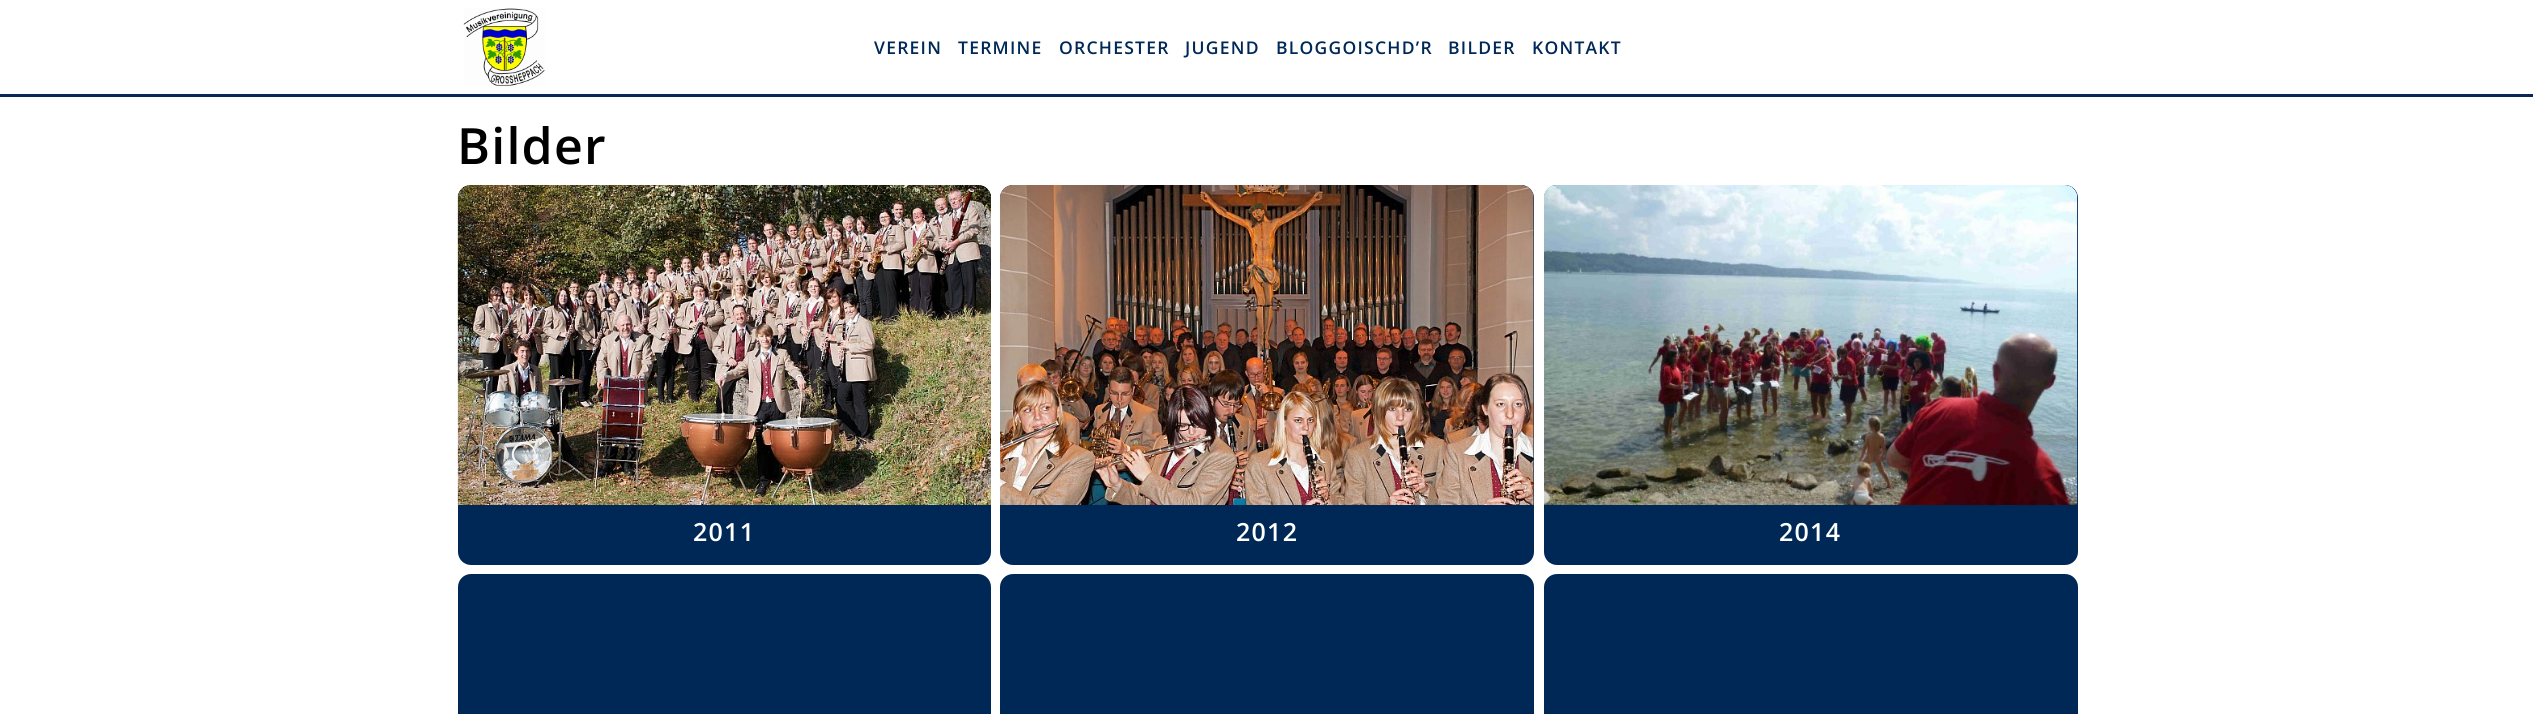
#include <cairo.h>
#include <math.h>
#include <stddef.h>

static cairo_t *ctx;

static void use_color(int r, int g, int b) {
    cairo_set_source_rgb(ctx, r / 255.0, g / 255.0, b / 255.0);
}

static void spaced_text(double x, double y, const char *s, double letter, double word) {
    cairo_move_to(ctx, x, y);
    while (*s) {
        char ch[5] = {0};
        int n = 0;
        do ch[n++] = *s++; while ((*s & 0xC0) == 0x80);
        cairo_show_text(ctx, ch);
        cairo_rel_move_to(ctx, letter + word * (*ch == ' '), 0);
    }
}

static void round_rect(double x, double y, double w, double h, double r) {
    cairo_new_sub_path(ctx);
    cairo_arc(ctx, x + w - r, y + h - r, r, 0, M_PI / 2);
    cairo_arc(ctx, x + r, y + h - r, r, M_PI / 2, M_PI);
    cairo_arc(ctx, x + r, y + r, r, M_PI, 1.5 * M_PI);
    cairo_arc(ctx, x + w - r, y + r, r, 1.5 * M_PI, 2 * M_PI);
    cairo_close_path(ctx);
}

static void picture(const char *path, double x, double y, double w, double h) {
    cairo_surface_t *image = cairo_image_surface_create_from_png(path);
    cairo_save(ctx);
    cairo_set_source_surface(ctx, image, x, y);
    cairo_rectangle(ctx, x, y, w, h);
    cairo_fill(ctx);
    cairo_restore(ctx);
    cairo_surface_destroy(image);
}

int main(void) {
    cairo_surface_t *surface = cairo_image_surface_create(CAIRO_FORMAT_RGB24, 2533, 714);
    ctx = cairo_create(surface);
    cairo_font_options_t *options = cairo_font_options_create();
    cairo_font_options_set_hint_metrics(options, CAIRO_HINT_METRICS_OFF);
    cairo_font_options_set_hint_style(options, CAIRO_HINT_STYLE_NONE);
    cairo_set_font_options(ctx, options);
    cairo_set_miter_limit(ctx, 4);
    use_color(255, 255, 255);
    cairo_paint(ctx);
    use_color(9, 40, 87);
    cairo_rectangle(ctx, 0, 94, 2533, 3);
    cairo_fill(ctx);
    picture("img1.png", 463, 8, 82, 78);
    cairo_select_font_face(ctx, "Open Sans SemiBold", CAIRO_FONT_SLANT_NORMAL, CAIRO_FONT_WEIGHT_NORMAL);
    cairo_set_font_size(ctx, 17.5);
    use_color(0, 40, 87);
    spaced_text(874, 54, "VEREIN", 1.25, 0);
    spaced_text(958, 54, "TERMINE", 1.25, 0);
    spaced_text(1059, 54, "ORCHESTER", 1.25, 0);
    spaced_text(1185, 54, "JUGEND", 1.25, 0);
    spaced_text(1276, 54, "BLOGGOISCHD’R", 1.25, 0);
    spaced_text(1448, 54, "BILDER", 1.25, 0);
    spaced_text(1532, 54, "KONTAKT", 1.25, 0);
    cairo_set_font_size(ctx, 50);
    use_color(0, 0, 0);
    spaced_text(457, 164, "Bilder", 1.25, 0);
    use_color(0, 40, 87);
    round_rect(458, 185, 533, 380, 13);
    cairo_fill(ctx);
    picture("img2.png", 457, 185, 534, 320);
    cairo_set_font_size(ctx, 25);
    use_color(255, 255, 255);
    spaced_text(693, 541, "2011", 1.25, 0);
    use_color(0, 40, 87);
    round_rect(1000, 185, 534, 380, 13);
    cairo_fill(ctx);
    picture("img3.png", 1000, 185, 534, 320);
    use_color(255, 255, 255);
    spaced_text(1236, 541, "2012", 1.25, 0);
    use_color(0, 40, 87);
    round_rect(1544, 185, 534, 380, 13);
    cairo_fill(ctx);
    picture("img4.png", 1544, 185, 534, 320);
    use_color(255, 255, 255);
    spaced_text(1779, 541, "2014", 1.25, 0);
    use_color(0, 40, 87);
    round_rect(458, 574, 533, 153, 13);
    cairo_fill(ctx);
    round_rect(1000, 574, 534, 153, 13);
    cairo_fill(ctx);
    round_rect(1544, 574, 534, 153, 13);
    cairo_fill(ctx);
    cairo_surface_write_to_png(surface, "result.png");
    cairo_font_options_destroy(options);
    cairo_destroy(ctx);
    cairo_surface_destroy(surface);
    return 0;
}
